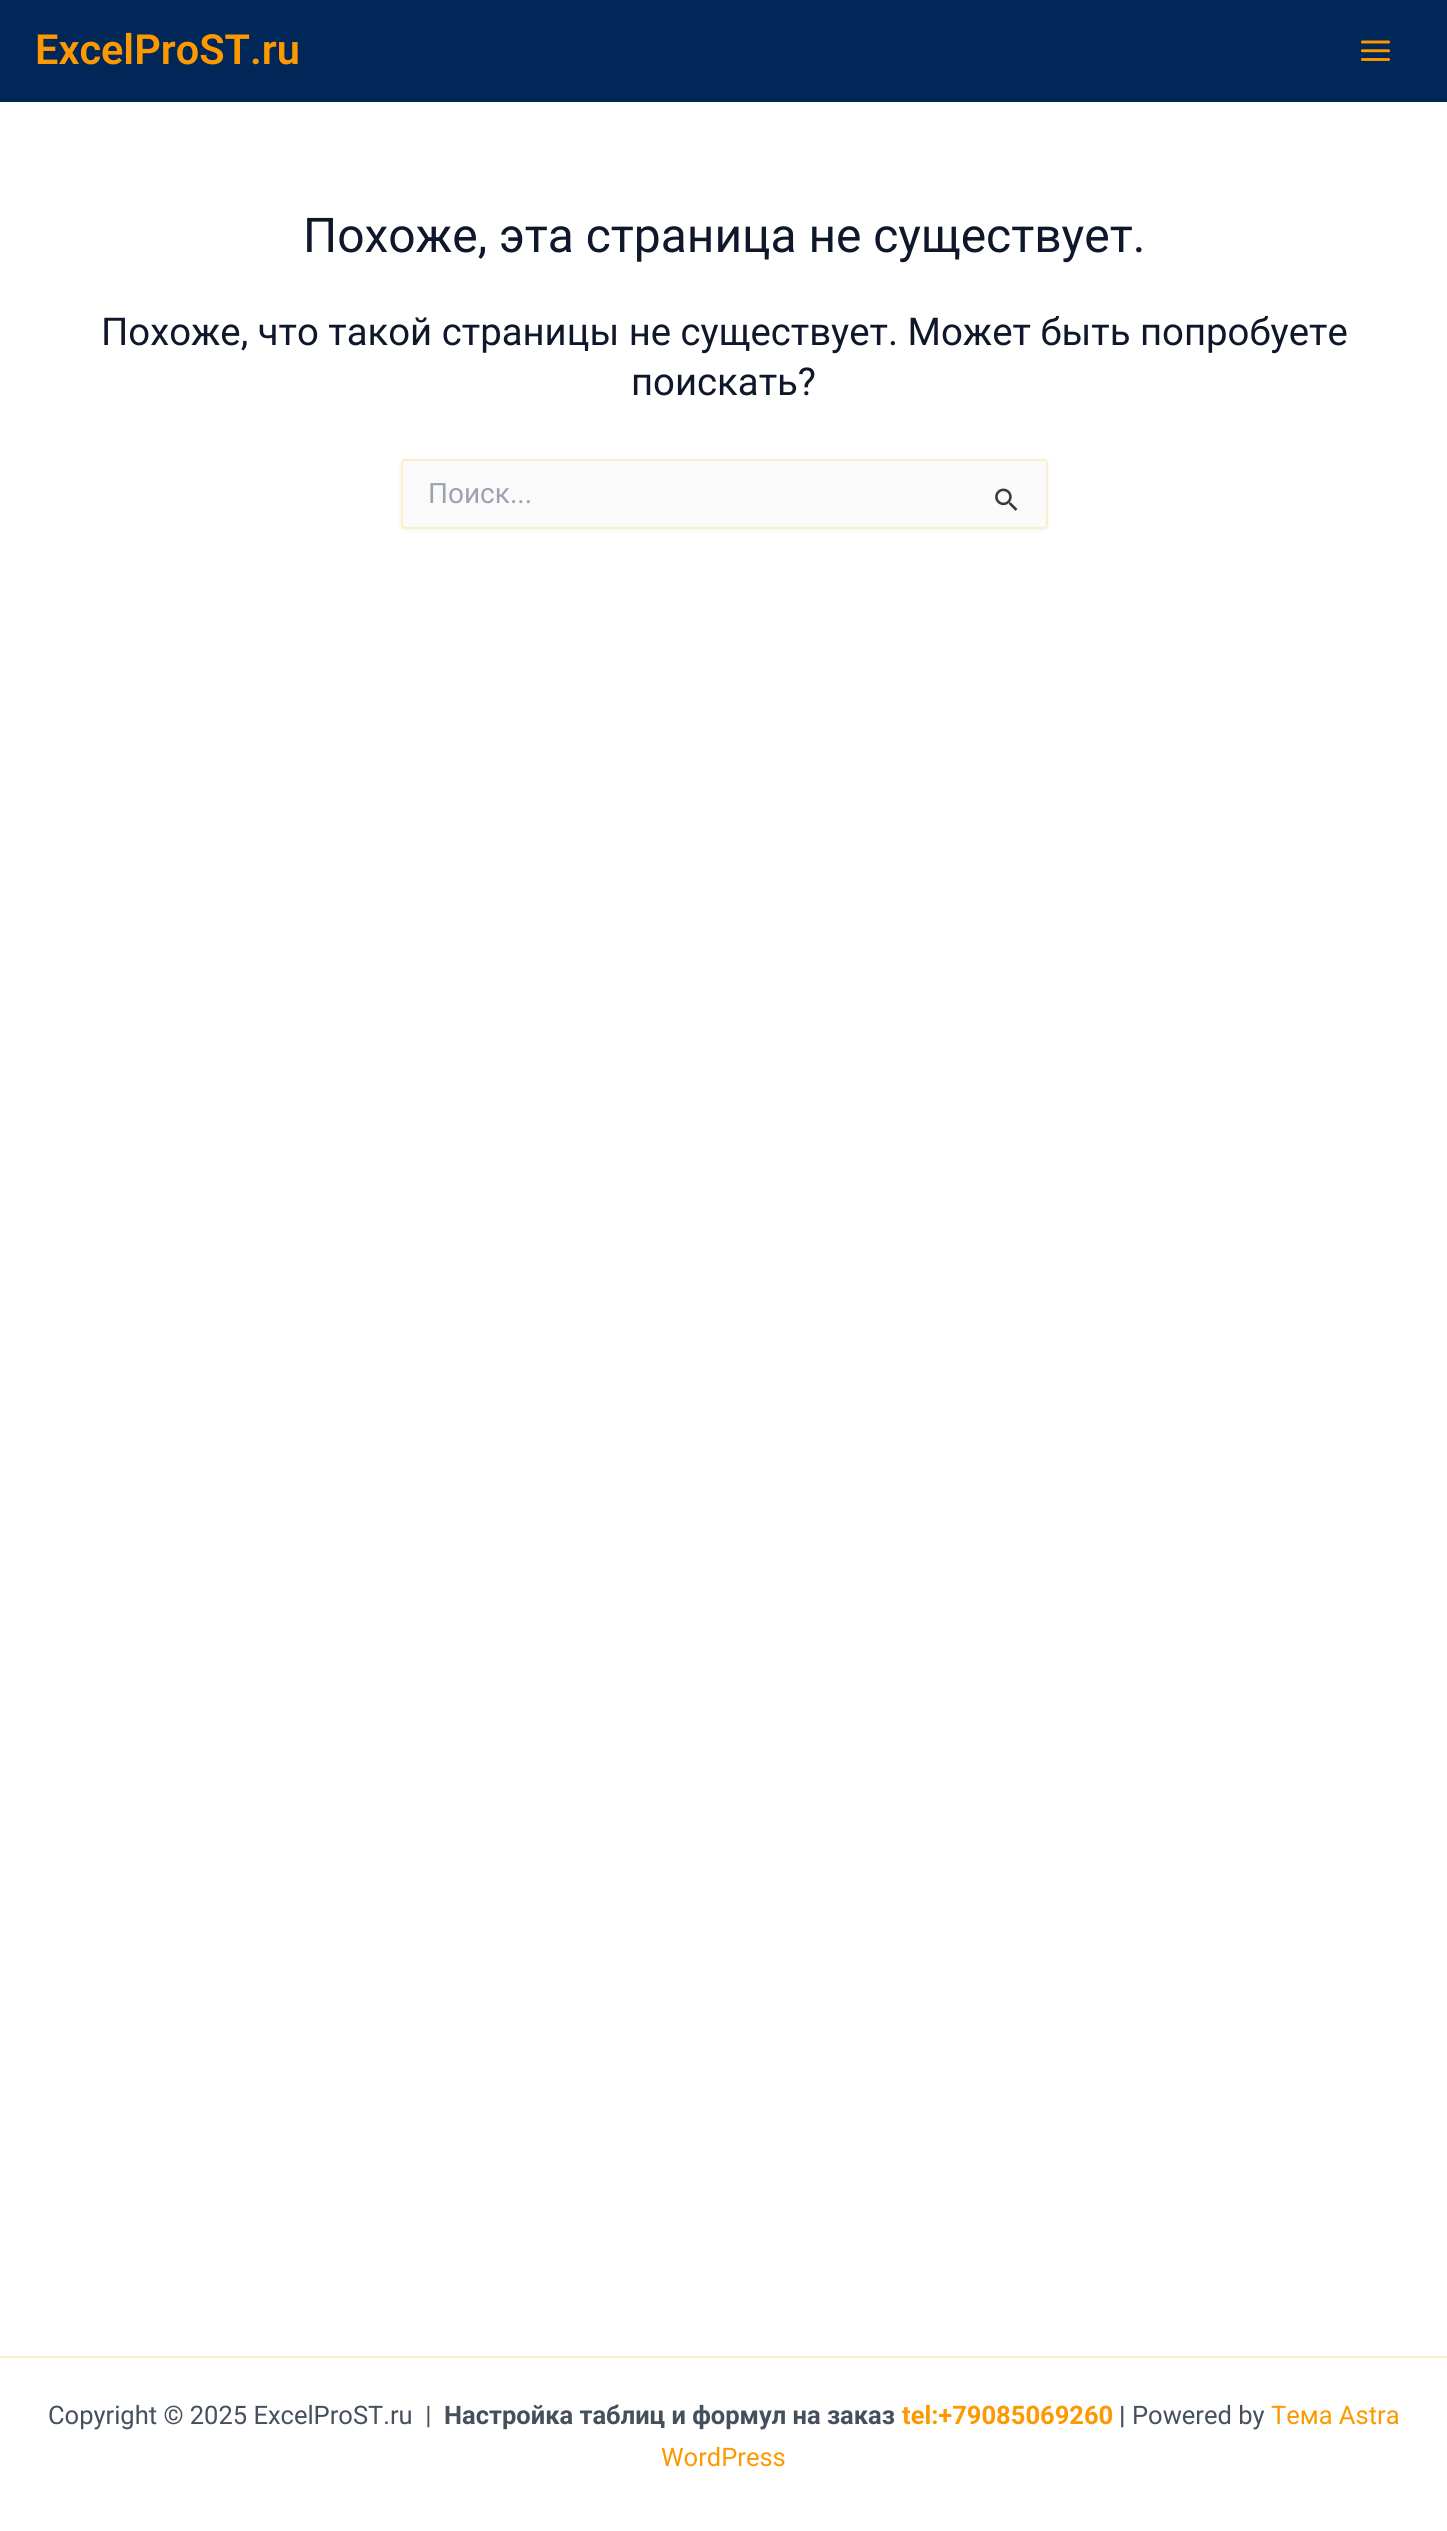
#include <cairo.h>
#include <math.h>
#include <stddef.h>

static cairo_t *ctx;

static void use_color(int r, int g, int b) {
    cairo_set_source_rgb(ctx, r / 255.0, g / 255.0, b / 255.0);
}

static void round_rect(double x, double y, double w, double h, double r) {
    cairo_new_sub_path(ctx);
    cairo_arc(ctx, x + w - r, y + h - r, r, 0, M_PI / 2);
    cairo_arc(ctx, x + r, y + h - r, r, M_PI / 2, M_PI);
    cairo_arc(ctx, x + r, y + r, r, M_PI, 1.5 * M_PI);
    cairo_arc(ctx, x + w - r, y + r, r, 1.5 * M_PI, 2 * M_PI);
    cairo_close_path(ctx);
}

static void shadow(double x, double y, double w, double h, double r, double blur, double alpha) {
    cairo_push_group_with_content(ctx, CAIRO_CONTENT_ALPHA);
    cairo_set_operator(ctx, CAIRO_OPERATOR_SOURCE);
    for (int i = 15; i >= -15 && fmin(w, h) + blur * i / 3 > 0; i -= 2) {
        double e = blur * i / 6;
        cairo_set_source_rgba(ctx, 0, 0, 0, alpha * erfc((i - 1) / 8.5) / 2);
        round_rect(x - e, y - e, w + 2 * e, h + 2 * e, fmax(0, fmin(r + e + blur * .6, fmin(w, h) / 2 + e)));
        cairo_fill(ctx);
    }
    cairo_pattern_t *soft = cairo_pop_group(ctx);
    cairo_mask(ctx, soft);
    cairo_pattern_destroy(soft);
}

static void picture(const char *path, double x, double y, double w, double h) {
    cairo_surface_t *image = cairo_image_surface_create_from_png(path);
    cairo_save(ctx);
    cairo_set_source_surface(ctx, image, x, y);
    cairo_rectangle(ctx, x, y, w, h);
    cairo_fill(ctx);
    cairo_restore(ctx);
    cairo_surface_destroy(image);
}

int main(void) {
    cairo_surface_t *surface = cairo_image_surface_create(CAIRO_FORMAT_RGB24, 1447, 2531);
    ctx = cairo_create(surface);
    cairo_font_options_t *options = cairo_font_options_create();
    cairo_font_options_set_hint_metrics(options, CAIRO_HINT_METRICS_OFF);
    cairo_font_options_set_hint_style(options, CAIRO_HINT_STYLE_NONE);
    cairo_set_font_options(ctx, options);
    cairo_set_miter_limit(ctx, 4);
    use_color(255, 255, 255);
    cairo_paint(ctx);
    use_color(1, 39, 88);
    cairo_rectangle(ctx, 0, 0, 1447, 102);
    cairo_fill(ctx);
    cairo_select_font_face(ctx, "Roboto SemiBold", CAIRO_FONT_SLANT_NORMAL, CAIRO_FONT_WEIGHT_NORMAL);
    cairo_set_font_size(ctx, 41.5);
    use_color(253, 152, 0);
    cairo_move_to(ctx, 35, 64);
    cairo_show_text(ctx, "ExcelProST.ru");
    picture("img1.png", 1360, 40, 31, 21);
    cairo_select_font_face(ctx, "Roboto", CAIRO_FONT_SLANT_NORMAL, CAIRO_FONT_WEIGHT_NORMAL);
    cairo_set_font_size(ctx, 47.9);
    use_color(15, 23, 42);
    cairo_move_to(ctx, 303, 252);
    cairo_show_text(ctx, "Похоже, эта страница не существует.");
    cairo_set_font_size(ctx, 38.3);
    cairo_move_to(ctx, 101, 345);
    cairo_show_text(ctx, "Похоже, что такой страницы не существует. Может быть попробуете");
    cairo_move_to(ctx, 631, 395);
    cairo_show_text(ctx, "поискать?");
    use_color(0, 0, 0);
    shadow(401, 460, 647, 70, 4, 2, 0.05);
    use_color(250, 250, 250);
    round_rect(402, 460, 645, 68, 3);
    cairo_fill_preserve(ctx);
    use_color(249, 240, 200);
    cairo_stroke(ctx);
    cairo_set_font_size(ctx, 28);
    use_color(156, 163, 175);
    cairo_move_to(ctx, 428, 503);
    cairo_show_text(ctx, "Поиск...");
    picture("img2.png", 995, 488, 23, 23);
    use_color(249, 240, 200);
    cairo_rectangle(ctx, 0, 2356, 1447, 2);
    cairo_fill(ctx);
    cairo_set_font_size(ctx, 25.5);
    use_color(69, 79, 94);
    cairo_move_to(ctx, 48, 2424);
    cairo_show_text(ctx, "Copyright © 2025 ExcelProST.ru  |");
    cairo_select_font_face(ctx, "Roboto", CAIRO_FONT_SLANT_NORMAL, CAIRO_FONT_WEIGHT_BOLD);
    cairo_move_to(ctx, 444, 2424);
    cairo_show_text(ctx, "Настройка таблиц и формул на заказ");
    use_color(253, 152, 0);
    cairo_move_to(ctx, 902, 2424);
    cairo_show_text(ctx, "tel:+79085069260");
    use_color(69, 79, 94);
    cairo_move_to(ctx, 1119, 2424);
    cairo_show_text(ctx, "|");
    cairo_select_font_face(ctx, "Roboto", CAIRO_FONT_SLANT_NORMAL, CAIRO_FONT_WEIGHT_NORMAL);
    cairo_move_to(ctx, 1132, 2424);
    cairo_show_text(ctx, "Powered by");
    use_color(253, 152, 0);
    cairo_move_to(ctx, 1271, 2424);
    cairo_show_text(ctx, "Тема Astra");
    cairo_move_to(ctx, 661, 2466);
    cairo_show_text(ctx, "WordPress");
    cairo_surface_write_to_png(surface, "result.png");
    cairo_font_options_destroy(options);
    cairo_destroy(ctx);
    cairo_surface_destroy(surface);
    return 0;
}
